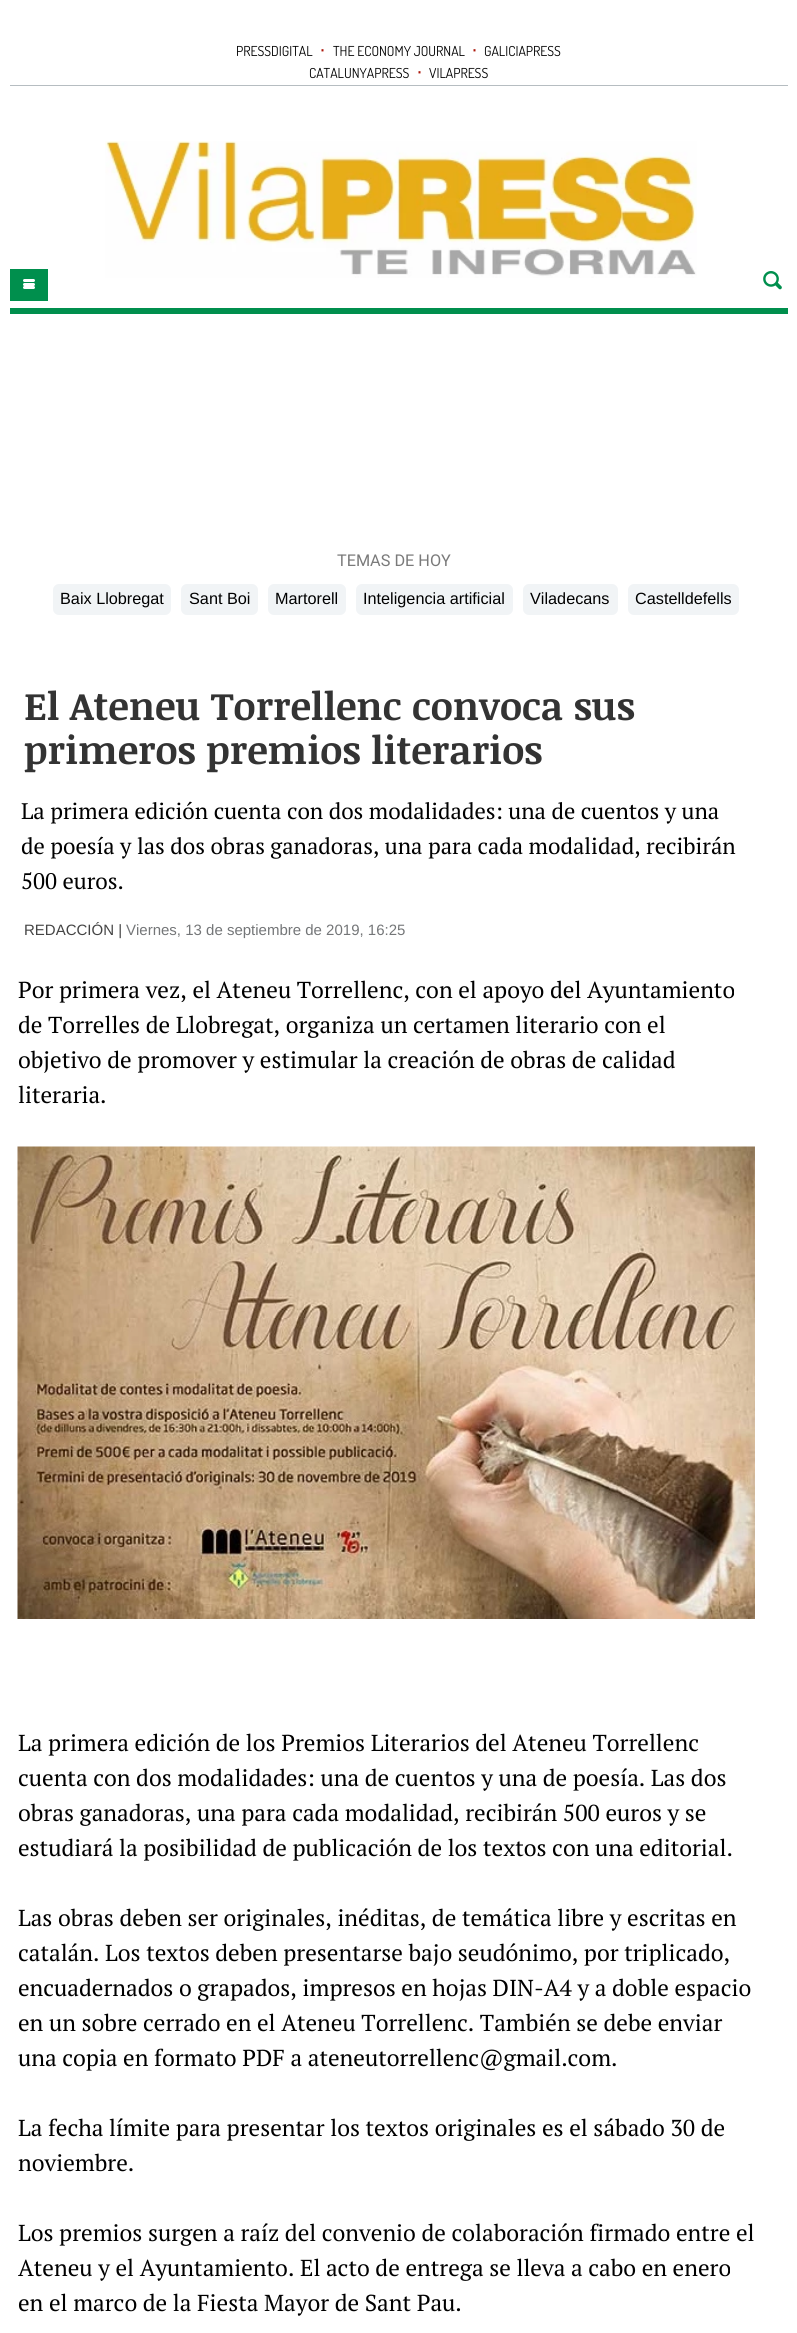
#include <cairo.h>
#include <math.h>
#include <stddef.h>

static cairo_t *ctx;

static void use_color(int r, int g, int b) {
    cairo_set_source_rgb(ctx, r / 255.0, g / 255.0, b / 255.0);
}

static void round_rect(double x, double y, double w, double h, double r) {
    cairo_new_sub_path(ctx);
    cairo_arc(ctx, x + w - r, y + h - r, r, 0, M_PI / 2);
    cairo_arc(ctx, x + r, y + h - r, r, M_PI / 2, M_PI);
    cairo_arc(ctx, x + r, y + r, r, M_PI, 1.5 * M_PI);
    cairo_arc(ctx, x + w - r, y + r, r, 1.5 * M_PI, 2 * M_PI);
    cairo_close_path(ctx);
}

static void picture(const char *path, double x, double y, double w, double h) {
    cairo_surface_t *image = cairo_image_surface_create_from_png(path);
    cairo_save(ctx);
    cairo_set_source_surface(ctx, image, x, y);
    cairo_rectangle(ctx, x, y, w, h);
    cairo_fill(ctx);
    cairo_restore(ctx);
    cairo_surface_destroy(image);
}

int main(void) {
    cairo_surface_t *surface = cairo_image_surface_create(CAIRO_FORMAT_RGB24, 797, 2333);
    ctx = cairo_create(surface);
    cairo_font_options_t *options = cairo_font_options_create();
    cairo_font_options_set_hint_metrics(options, CAIRO_HINT_METRICS_OFF);
    cairo_font_options_set_hint_style(options, CAIRO_HINT_STYLE_NONE);
    cairo_set_font_options(ctx, options);
    cairo_set_miter_limit(ctx, 4);
    use_color(255, 255, 255);
    cairo_paint(ctx);
    use_color(182, 189, 193);
    cairo_rectangle(ctx, 10, 85, 778, 1);
    cairo_fill(ctx);
    cairo_select_font_face(ctx, "Dosis", CAIRO_FONT_SLANT_NORMAL, CAIRO_FONT_WEIGHT_NORMAL);
    cairo_set_font_size(ctx, 13.75);
    use_color(0, 0, 0);
    cairo_move_to(ctx, 236, 56);
    cairo_show_text(ctx, "PRESSDIGITAL");
    cairo_select_font_face(ctx, "Liberation Sans", CAIRO_FONT_SLANT_NORMAL, CAIRO_FONT_WEIGHT_NORMAL);
    cairo_set_font_size(ctx, 21);
    use_color(172, 22, 9);
    cairo_move_to(ctx, 319, 56);
    cairo_show_text(ctx, "·");
    cairo_select_font_face(ctx, "Dosis", CAIRO_FONT_SLANT_NORMAL, CAIRO_FONT_WEIGHT_NORMAL);
    cairo_set_font_size(ctx, 13.75);
    use_color(0, 0, 0);
    cairo_move_to(ctx, 333, 56);
    cairo_show_text(ctx, "THE ECONOMY JOURNAL");
    cairo_select_font_face(ctx, "Liberation Sans", CAIRO_FONT_SLANT_NORMAL, CAIRO_FONT_WEIGHT_NORMAL);
    cairo_set_font_size(ctx, 21);
    use_color(172, 22, 9);
    cairo_move_to(ctx, 471, 56);
    cairo_show_text(ctx, "·");
    cairo_select_font_face(ctx, "Dosis", CAIRO_FONT_SLANT_NORMAL, CAIRO_FONT_WEIGHT_NORMAL);
    cairo_set_font_size(ctx, 13.75);
    use_color(0, 0, 0);
    cairo_move_to(ctx, 484, 56);
    cairo_show_text(ctx, "GALICIAPRESS");
    cairo_move_to(ctx, 309, 78);
    cairo_show_text(ctx, "CATALUNYAPRESS");
    cairo_select_font_face(ctx, "Liberation Sans", CAIRO_FONT_SLANT_NORMAL, CAIRO_FONT_WEIGHT_NORMAL);
    cairo_set_font_size(ctx, 21);
    use_color(172, 22, 9);
    cairo_move_to(ctx, 416, 78);
    cairo_show_text(ctx, "·");
    cairo_select_font_face(ctx, "Dosis", CAIRO_FONT_SLANT_NORMAL, CAIRO_FONT_WEIGHT_NORMAL);
    cairo_set_font_size(ctx, 13.75);
    use_color(0, 0, 0);
    cairo_move_to(ctx, 429, 78);
    cairo_show_text(ctx, "VILAPRESS");
    use_color(0, 143, 77);
    cairo_rectangle(ctx, 10, 308, 778, 6);
    cairo_fill(ctx);
    picture("img1.png", 105, 141, 592, 137);
    cairo_rectangle(ctx, 10, 269, 38, 32);
    cairo_fill(ctx);
    use_color(255, 255, 255);
    round_rect(23, 279, 12, 3, 1.5);
    cairo_fill(ctx);
    round_rect(23, 283, 12, 3, 1.5);
    cairo_fill(ctx);
    round_rect(23, 286, 12, 3, 1.5);
    cairo_fill(ctx);
    picture("img2.png", 763, 271, 19, 19);
    cairo_select_font_face(ctx, "Roboto", CAIRO_FONT_SLANT_NORMAL, CAIRO_FONT_WEIGHT_NORMAL);
    cairo_set_font_size(ctx, 16.25);
    use_color(122, 122, 122);
    cairo_move_to(ctx, 337, 566);
    cairo_show_text(ctx, "TEMAS DE HOY");
    use_color(241, 244, 246);
    round_rect(53, 584, 118, 31, 6);
    cairo_fill(ctx);
    cairo_select_font_face(ctx, "Liberation Sans", CAIRO_FONT_SLANT_NORMAL, CAIRO_FONT_WEIGHT_NORMAL);
    use_color(0, 0, 0);
    cairo_move_to(ctx, 60, 604);
    cairo_show_text(ctx, "Baix Llobregat");
    use_color(241, 244, 246);
    round_rect(181, 584, 77, 31, 6);
    cairo_fill(ctx);
    use_color(0, 0, 0);
    cairo_move_to(ctx, 189, 604);
    cairo_show_text(ctx, "Sant Boi");
    use_color(241, 244, 246);
    round_rect(268, 584, 78, 31, 6);
    cairo_fill(ctx);
    use_color(0, 0, 0);
    cairo_move_to(ctx, 275, 604);
    cairo_show_text(ctx, "Martorell");
    use_color(241, 244, 246);
    round_rect(356, 584, 157, 31, 6);
    cairo_fill(ctx);
    use_color(0, 0, 0);
    cairo_move_to(ctx, 363, 604);
    cairo_show_text(ctx, "Inteligencia artificial");
    use_color(241, 244, 246);
    round_rect(523, 584, 95, 31, 6);
    cairo_fill(ctx);
    use_color(0, 0, 0);
    cairo_move_to(ctx, 530, 604);
    cairo_show_text(ctx, "Viladecans");
    use_color(241, 244, 246);
    round_rect(628, 584, 111, 31, 6);
    cairo_fill(ctx);
    use_color(0, 0, 0);
    cairo_move_to(ctx, 635, 604);
    cairo_show_text(ctx, "Castelldefells");
    cairo_select_font_face(ctx, "Noticia Text", CAIRO_FONT_SLANT_NORMAL, CAIRO_FONT_WEIGHT_BOLD);
    cairo_set_font_size(ctx, 38.75);
    use_color(51, 51, 51);
    cairo_move_to(ctx, 24, 720);
    cairo_show_text(ctx, "El Ateneu Torrellenc convoca sus");
    cairo_move_to(ctx, 24, 764);
    cairo_show_text(ctx, "primeros premios literarios");
    cairo_select_font_face(ctx, "PT Serif", CAIRO_FONT_SLANT_NORMAL, CAIRO_FONT_WEIGHT_NORMAL);
    cairo_set_font_size(ctx, 22.5);
    use_color(0, 0, 0);
    cairo_move_to(ctx, 21, 819);
    cairo_show_text(ctx, "La primera edición cuenta con dos modalidades: una de cuentos y una");
    cairo_move_to(ctx, 21, 854);
    cairo_show_text(ctx, "de poesía y las dos obras ganadoras, una para cada modalidad, recibirán");
    cairo_move_to(ctx, 21, 889);
    cairo_show_text(ctx, "500 euros.");
    cairo_select_font_face(ctx, "Liberation Sans", CAIRO_FONT_SLANT_NORMAL, CAIRO_FONT_WEIGHT_NORMAL);
    cairo_set_font_size(ctx, 15);
    use_color(68, 68, 68);
    cairo_move_to(ctx, 24, 935);
    cairo_show_text(ctx, "REDACCIÓN |");
    use_color(116, 118, 120);
    cairo_move_to(ctx, 126, 935);
    cairo_show_text(ctx, "Viernes, 13 de septiembre de 2019, 16:25");
    cairo_select_font_face(ctx, "PT Serif", CAIRO_FONT_SLANT_NORMAL, CAIRO_FONT_WEIGHT_NORMAL);
    cairo_set_font_size(ctx, 23.1);
    use_color(0, 0, 0);
    cairo_move_to(ctx, 18, 998);
    cairo_show_text(ctx, "Por primera vez, el Ateneu Torrellenc, con el apoyo del Ayuntamiento");
    cairo_move_to(ctx, 18, 1033);
    cairo_show_text(ctx, "de Torrelles de Llobregat, organiza un certamen literario con el");
    cairo_move_to(ctx, 18, 1068);
    cairo_show_text(ctx, "objetivo de promover y estimular la creación de obras de calidad");
    cairo_move_to(ctx, 18, 1103);
    cairo_show_text(ctx, "literaria.");
    picture("img3.png", 17, 1146, 738, 473);
    cairo_move_to(ctx, 18, 1751);
    cairo_show_text(ctx, "La primera edición de los Premios Literarios del Ateneu Torrellenc");
    cairo_move_to(ctx, 18, 1786);
    cairo_show_text(ctx, "cuenta con dos modalidades: una de cuentos y una de poesía. Las dos");
    cairo_move_to(ctx, 18, 1821);
    cairo_show_text(ctx, "obras ganadoras, una para cada modalidad, recibirán 500 euros y se");
    cairo_move_to(ctx, 18, 1856);
    cairo_show_text(ctx, "estudiará la posibilidad de publicación de los textos con una editorial.");
    cairo_move_to(ctx, 18, 1926);
    cairo_show_text(ctx, "Las obras deben ser originales, inéditas, de temática libre y escritas en");
    cairo_move_to(ctx, 18, 1961);
    cairo_show_text(ctx, "catalán. Los textos deben presentarse bajo seudónimo, por triplicado,");
    cairo_move_to(ctx, 18, 1996);
    cairo_show_text(ctx, "encuadernados o grapados, impresos en hojas DIN-A4 y a doble espacio");
    cairo_move_to(ctx, 18, 2031);
    cairo_show_text(ctx, "en un sobre cerrado en el Ateneu Torrellenc. También se debe enviar");
    cairo_move_to(ctx, 18, 2066);
    cairo_show_text(ctx, "una copia en formato PDF a ateneutorrellenc@gmail.com.");
    cairo_move_to(ctx, 18, 2136);
    cairo_show_text(ctx, "La fecha límite para presentar los textos originales es el sábado 30 de");
    cairo_move_to(ctx, 18, 2171);
    cairo_show_text(ctx, "noviembre.");
    cairo_move_to(ctx, 18, 2241);
    cairo_show_text(ctx, "Los premios surgen a raíz del convenio de colaboración firmado entre el");
    cairo_move_to(ctx, 18, 2276);
    cairo_show_text(ctx, "Ateneu y el Ayuntamiento. El acto de entrega se lleva a cabo en enero");
    cairo_move_to(ctx, 18, 2311);
    cairo_show_text(ctx, "en el marco de la Fiesta Mayor de Sant Pau.");
    cairo_surface_write_to_png(surface, "result.png");
    cairo_font_options_destroy(options);
    cairo_destroy(ctx);
    cairo_surface_destroy(surface);
    return 0;
}
